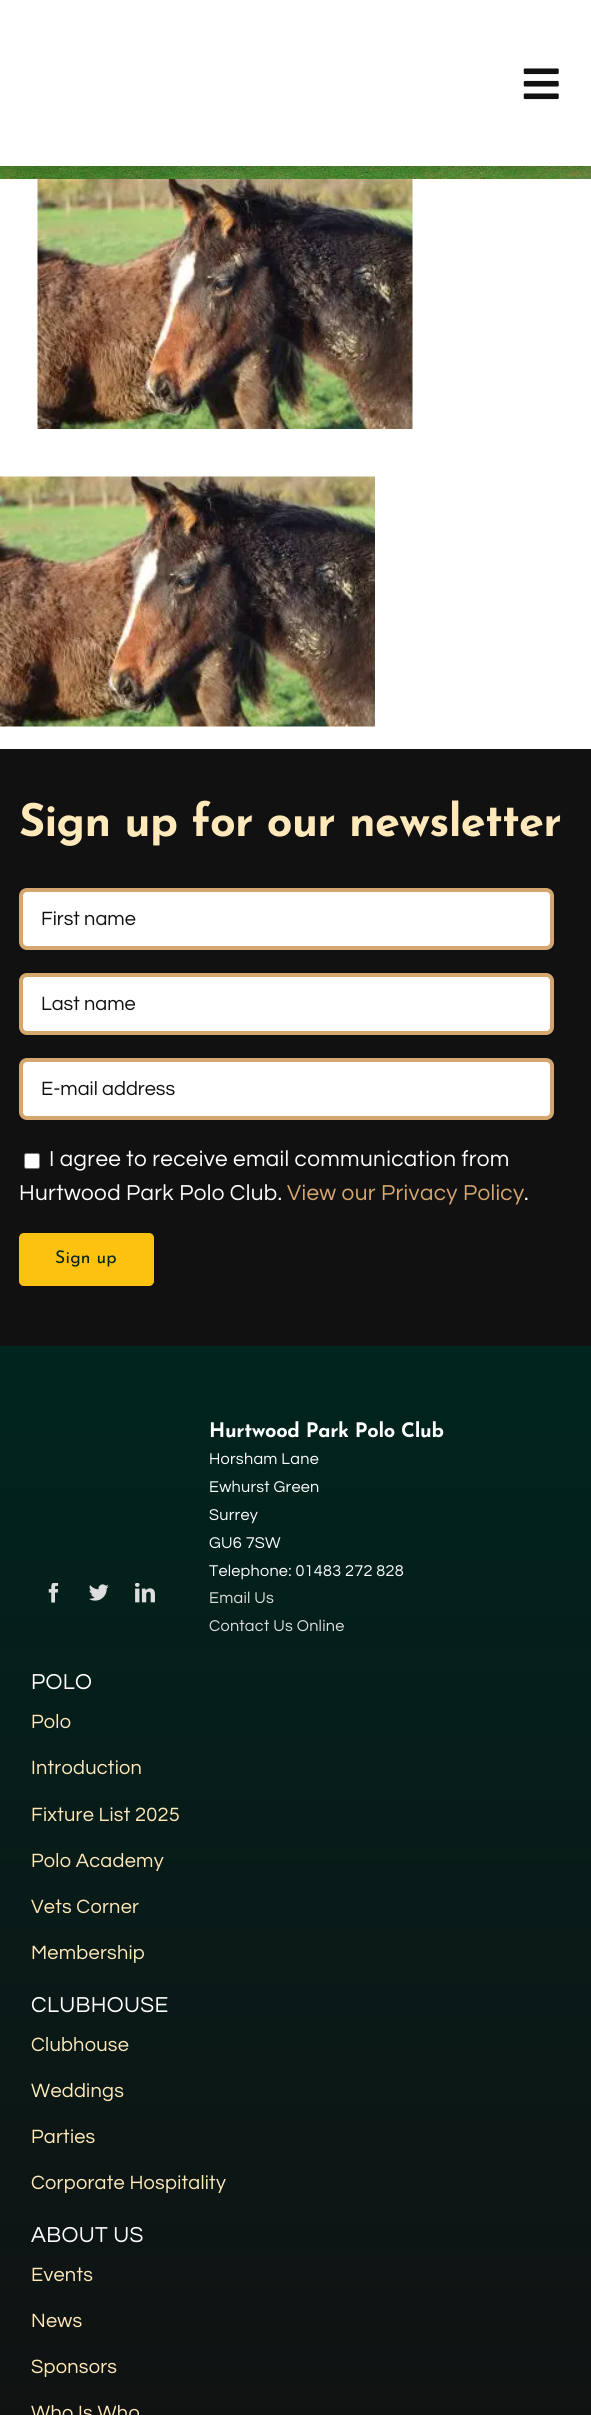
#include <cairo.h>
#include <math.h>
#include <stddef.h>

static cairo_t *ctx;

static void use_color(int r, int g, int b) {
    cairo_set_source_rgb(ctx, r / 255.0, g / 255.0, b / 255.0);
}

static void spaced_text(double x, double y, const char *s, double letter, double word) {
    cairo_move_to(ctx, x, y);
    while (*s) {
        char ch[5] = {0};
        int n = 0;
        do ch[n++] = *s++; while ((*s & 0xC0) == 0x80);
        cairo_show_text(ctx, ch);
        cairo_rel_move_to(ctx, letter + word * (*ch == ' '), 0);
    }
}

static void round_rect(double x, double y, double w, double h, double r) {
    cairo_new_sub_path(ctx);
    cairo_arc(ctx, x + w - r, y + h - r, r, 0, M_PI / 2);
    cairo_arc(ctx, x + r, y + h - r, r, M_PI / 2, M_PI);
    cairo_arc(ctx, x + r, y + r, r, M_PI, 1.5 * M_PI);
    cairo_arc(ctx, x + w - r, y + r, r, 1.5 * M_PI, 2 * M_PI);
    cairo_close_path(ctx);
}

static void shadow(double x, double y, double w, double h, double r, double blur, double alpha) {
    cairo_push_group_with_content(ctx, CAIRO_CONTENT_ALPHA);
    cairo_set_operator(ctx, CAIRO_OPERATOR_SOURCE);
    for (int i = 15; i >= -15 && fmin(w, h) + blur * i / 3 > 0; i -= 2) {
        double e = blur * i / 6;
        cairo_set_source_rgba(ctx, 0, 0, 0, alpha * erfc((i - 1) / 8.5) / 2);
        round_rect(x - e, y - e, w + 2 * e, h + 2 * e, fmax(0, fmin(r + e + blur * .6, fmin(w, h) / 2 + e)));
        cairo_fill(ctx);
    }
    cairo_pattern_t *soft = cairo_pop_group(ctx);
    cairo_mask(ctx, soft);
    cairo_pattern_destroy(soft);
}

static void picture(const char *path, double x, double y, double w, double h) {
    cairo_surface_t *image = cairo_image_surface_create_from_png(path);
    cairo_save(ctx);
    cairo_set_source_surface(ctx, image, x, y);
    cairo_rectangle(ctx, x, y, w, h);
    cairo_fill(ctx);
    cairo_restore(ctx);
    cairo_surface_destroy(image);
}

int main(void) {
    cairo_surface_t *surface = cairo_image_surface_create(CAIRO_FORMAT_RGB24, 591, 2415);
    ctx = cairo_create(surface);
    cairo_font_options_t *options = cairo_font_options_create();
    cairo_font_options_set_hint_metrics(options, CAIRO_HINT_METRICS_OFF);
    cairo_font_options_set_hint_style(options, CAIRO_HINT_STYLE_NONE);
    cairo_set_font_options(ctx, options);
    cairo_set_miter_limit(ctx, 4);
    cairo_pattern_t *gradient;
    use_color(255, 255, 255);
    cairo_paint(ctx);
    picture("img2.png", 0, 166, 591, 13);
    picture("img3.png", 37, 179, 376, 250);
    use_color(0, 0, 0);
    shadow(0, 0, 591, 166, 0, 6, 0.2);
    use_color(255, 255, 255);
    cairo_rectangle(ctx, 0, 0, 591, 166);
    cairo_fill(ctx);
    picture("img1.png", 523, 68, 36, 32);
    picture("img4.png", 0, 476, 375, 251);
    use_color(17, 17, 17);
    cairo_rectangle(ctx, 0, 749, 591, 597);
    cairo_fill(ctx);
    cairo_select_font_face(ctx, "Josefin Sans", CAIRO_FONT_SLANT_NORMAL, CAIRO_FONT_WEIGHT_BOLD);
    cairo_set_font_size(ctx, 45);
    use_color(255, 233, 186);
    spaced_text(19, 836, "Sign up for our newsletter", -0.7, 0);
    use_color(255, 255, 255);
    round_rect(21, 890, 531, 58, 6);
    cairo_fill_preserve(ctx);
    use_color(213, 166, 110);
    cairo_set_line_width(ctx, 4);
    cairo_stroke(ctx);
    cairo_select_font_face(ctx, "Questrial", CAIRO_FONT_SLANT_NORMAL, CAIRO_FONT_WEIGHT_NORMAL);
    cairo_set_font_size(ctx, 20);
    use_color(17, 17, 17);
    cairo_move_to(ctx, 41, 925);
    cairo_show_text(ctx, "First name");
    use_color(255, 255, 255);
    round_rect(21, 975, 531, 58, 6);
    cairo_fill_preserve(ctx);
    use_color(213, 166, 110);
    cairo_stroke(ctx);
    use_color(17, 17, 17);
    cairo_move_to(ctx, 41, 1010);
    cairo_show_text(ctx, "Last name");
    use_color(255, 255, 255);
    round_rect(21, 1060, 531, 58, 6);
    cairo_fill_preserve(ctx);
    use_color(213, 166, 110);
    cairo_stroke(ctx);
    use_color(17, 17, 17);
    cairo_move_to(ctx, 41, 1095);
    cairo_show_text(ctx, "E-mail address");
    use_color(255, 255, 255);
    round_rect(24.5, 1153.5, 15, 15, 2);
    cairo_fill_preserve(ctx);
    use_color(118, 118, 118);
    cairo_set_line_width(ctx, 1);
    cairo_stroke(ctx);
    cairo_set_font_size(ctx, 22.5);
    use_color(255, 255, 255);
    spaced_text(49, 1166, "I agree to receive email communication from", 0.35, 0);
    spaced_text(19, 1200, "Hurtwood Park Polo Club.", 0.35, 0);
    use_color(213, 166, 110);
    spaced_text(287, 1200, "View our Privacy Policy", 0.35, 0);
    use_color(255, 255, 255);
    spaced_text(524, 1200, ".", 0.35, 0);
    use_color(253, 193, 16);
    round_rect(19, 1233, 135, 53, 5);
    cairo_fill(ctx);
    cairo_select_font_face(ctx, "Josefin Sans", CAIRO_FONT_SLANT_NORMAL, CAIRO_FONT_WEIGHT_NORMAL);
    cairo_set_font_size(ctx, 17.5);
    use_color(0, 36, 30);
    spaced_text(55, 1263, "Sign up", 0.25, 0);
    gradient = cairo_pattern_create_linear(296, 1346, 296, 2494);
    cairo_pattern_add_color_stop_rgba(gradient, 0, 0, 0.141, 0.118, 1);
    cairo_pattern_add_color_stop_rgba(gradient, 1, 0.067, 0.067, 0.067, 1);
    cairo_set_source(ctx, gradient);
    cairo_pattern_destroy(gradient);
    cairo_rectangle(ctx, 0, 1346, 591, 1069);
    cairo_fill(ctx);
    picture("img5.png", 48, 1583, 11, 20);
    picture("img6.png", 89, 1584, 20, 17);
    picture("img7.png", 135, 1583, 20, 20);
    cairo_select_font_face(ctx, "Josefin Sans", CAIRO_FONT_SLANT_NORMAL, CAIRO_FONT_WEIGHT_BOLD);
    cairo_set_font_size(ctx, 20);
    use_color(255, 255, 255);
    spaced_text(209, 1437, "Hurtwood Park Polo Club", -0.3, 0);
    cairo_select_font_face(ctx, "Questrial", CAIRO_FONT_SLANT_NORMAL, CAIRO_FONT_WEIGHT_NORMAL);
    cairo_set_font_size(ctx, 16.25);
    spaced_text(209, 1464, "Horsham Lane", 0.25, 0);
    spaced_text(209, 1492, "Ewhurst Green", 0.25, 0);
    spaced_text(209, 1520, "Surrey", 0.25, 0);
    spaced_text(209, 1548, "GU6 7SW", 0.25, 0);
    spaced_text(209, 1576, "Telephone: 01483 272 828", 0.25, 0);
    use_color(222, 222, 222);
    spaced_text(209, 1603, "Email Us", 0.25, 0);
    spaced_text(209, 1631, "Contact Us Online", 0.25, 0);
    cairo_set_font_size(ctx, 22.5);
    use_color(255, 255, 255);
    spaced_text(31, 1689, "POLO", 0.35, 0);
    cairo_set_font_size(ctx, 20);
    use_color(255, 233, 186);
    spaced_text(31, 1728, "Polo", 0.25, 0);
    spaced_text(31, 1774, "Introduction", 0.25, 0);
    spaced_text(31, 1821, "Fixture List 2025", 0.25, 0);
    spaced_text(31, 1867, "Polo Academy", 0.25, 0);
    spaced_text(31, 1913, "Vets Corner", 0.25, 0);
    spaced_text(31, 1959, "Membership", 0.25, 0);
    cairo_set_font_size(ctx, 22.5);
    use_color(255, 255, 255);
    spaced_text(31, 2012, "CLUBHOUSE", 0.35, 0);
    cairo_set_font_size(ctx, 20);
    use_color(255, 233, 186);
    spaced_text(31, 2051, "Clubhouse", 0.25, 0);
    spaced_text(31, 2097, "Weddings", 0.25, 0);
    spaced_text(31, 2143, "Parties", 0.25, 0);
    spaced_text(31, 2189, "Corporate Hospitality", 0.25, 0);
    cairo_set_font_size(ctx, 22.5);
    use_color(255, 255, 255);
    spaced_text(31, 2242, "ABOUT US", 0.35, 0);
    cairo_set_font_size(ctx, 20);
    use_color(255, 233, 186);
    spaced_text(31, 2281, "Events", 0.25, 0);
    spaced_text(31, 2327, "News", 0.25, 0);
    spaced_text(31, 2373, "Sponsors", 0.25, 0);
    spaced_text(31, 2419, "Who Is Who", 0.25, 0);
    cairo_surface_write_to_png(surface, "result.png");
    cairo_font_options_destroy(options);
    cairo_destroy(ctx);
    cairo_surface_destroy(surface);
    return 0;
}
